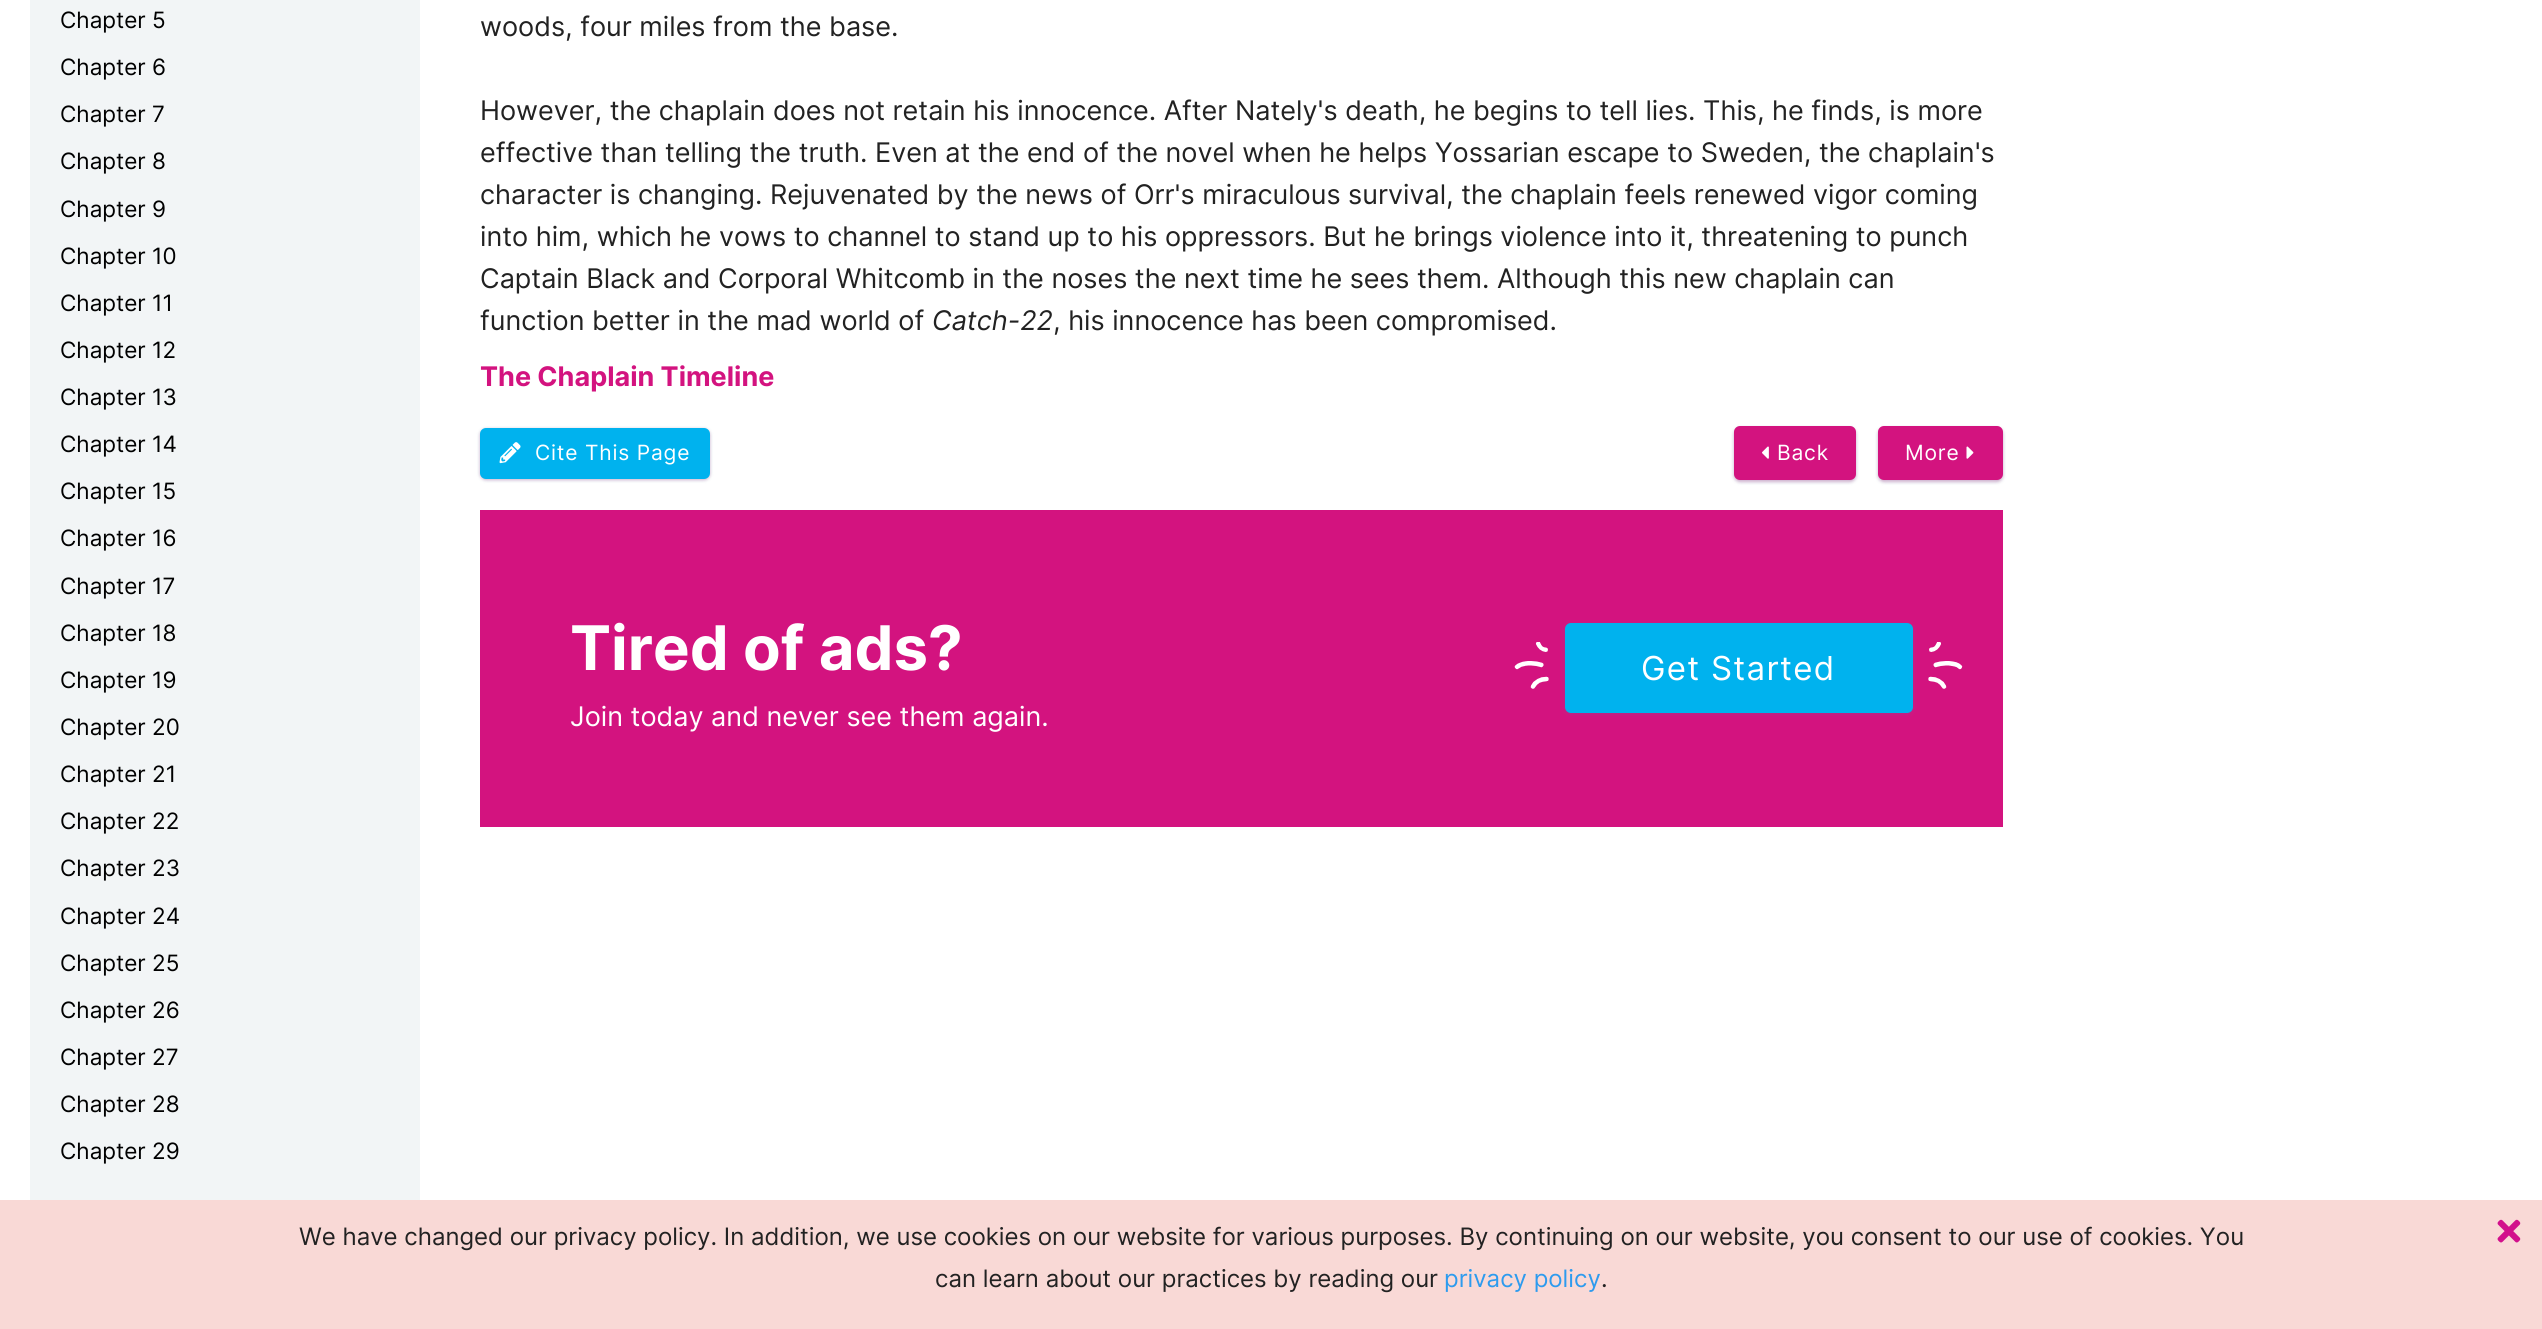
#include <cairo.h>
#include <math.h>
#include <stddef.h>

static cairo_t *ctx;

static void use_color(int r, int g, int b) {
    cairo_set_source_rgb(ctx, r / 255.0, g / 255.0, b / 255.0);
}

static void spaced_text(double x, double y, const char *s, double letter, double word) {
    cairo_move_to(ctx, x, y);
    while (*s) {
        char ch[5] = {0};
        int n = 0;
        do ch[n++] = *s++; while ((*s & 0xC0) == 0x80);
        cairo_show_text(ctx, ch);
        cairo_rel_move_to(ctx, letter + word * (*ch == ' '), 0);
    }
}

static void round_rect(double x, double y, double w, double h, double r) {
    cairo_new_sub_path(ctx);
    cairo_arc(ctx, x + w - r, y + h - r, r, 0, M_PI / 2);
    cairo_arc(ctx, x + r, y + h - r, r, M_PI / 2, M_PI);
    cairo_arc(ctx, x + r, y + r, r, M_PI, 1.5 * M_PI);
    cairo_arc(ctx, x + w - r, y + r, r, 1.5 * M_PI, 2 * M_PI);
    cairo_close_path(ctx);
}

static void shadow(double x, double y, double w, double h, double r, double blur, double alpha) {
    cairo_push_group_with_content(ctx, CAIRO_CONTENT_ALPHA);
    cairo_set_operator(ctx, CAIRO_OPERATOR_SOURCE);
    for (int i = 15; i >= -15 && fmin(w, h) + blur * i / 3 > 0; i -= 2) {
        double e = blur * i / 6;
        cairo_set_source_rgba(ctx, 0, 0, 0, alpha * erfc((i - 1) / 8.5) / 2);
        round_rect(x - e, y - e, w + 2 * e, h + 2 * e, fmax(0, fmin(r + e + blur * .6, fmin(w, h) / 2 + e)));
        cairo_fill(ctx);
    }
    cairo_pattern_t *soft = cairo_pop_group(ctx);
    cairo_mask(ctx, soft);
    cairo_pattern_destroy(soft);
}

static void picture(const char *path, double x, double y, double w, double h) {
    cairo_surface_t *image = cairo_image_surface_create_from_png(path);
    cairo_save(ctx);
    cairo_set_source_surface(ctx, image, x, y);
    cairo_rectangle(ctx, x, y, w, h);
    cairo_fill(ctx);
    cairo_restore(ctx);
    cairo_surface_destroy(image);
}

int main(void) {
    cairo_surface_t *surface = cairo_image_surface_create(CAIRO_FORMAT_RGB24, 2542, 1329);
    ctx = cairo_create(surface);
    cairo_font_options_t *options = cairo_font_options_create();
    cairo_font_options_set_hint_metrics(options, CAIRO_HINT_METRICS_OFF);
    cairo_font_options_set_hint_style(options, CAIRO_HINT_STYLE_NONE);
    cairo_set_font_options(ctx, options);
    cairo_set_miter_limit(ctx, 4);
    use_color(255, 255, 255);
    cairo_paint(ctx);
    use_color(242, 245, 246);
    cairo_rectangle(ctx, 30, 0, 390, 1200);
    cairo_fill(ctx);
    cairo_select_font_face(ctx, "Inter", CAIRO_FONT_SLANT_NORMAL, CAIRO_FONT_WEIGHT_NORMAL);
    cairo_set_font_size(ctx, 22.5);
    use_color(0, 0, 0);
    cairo_move_to(ctx, 60, 28);
    cairo_show_text(ctx, "Chapter 5");
    cairo_move_to(ctx, 60, 75);
    cairo_show_text(ctx, "Chapter 6");
    cairo_move_to(ctx, 60, 122);
    cairo_show_text(ctx, "Chapter 7");
    cairo_move_to(ctx, 60, 169);
    cairo_show_text(ctx, "Chapter 8");
    cairo_move_to(ctx, 60, 217);
    cairo_show_text(ctx, "Chapter 9");
    cairo_move_to(ctx, 60, 264);
    cairo_show_text(ctx, "Chapter 10");
    cairo_move_to(ctx, 60, 311);
    cairo_show_text(ctx, "Chapter 11");
    cairo_move_to(ctx, 60, 358);
    cairo_show_text(ctx, "Chapter 12");
    cairo_move_to(ctx, 60, 405);
    cairo_show_text(ctx, "Chapter 13");
    cairo_move_to(ctx, 60, 452);
    cairo_show_text(ctx, "Chapter 14");
    cairo_move_to(ctx, 60, 499);
    cairo_show_text(ctx, "Chapter 15");
    cairo_move_to(ctx, 60, 546);
    cairo_show_text(ctx, "Chapter 16");
    cairo_move_to(ctx, 60, 594);
    cairo_show_text(ctx, "Chapter 17");
    cairo_move_to(ctx, 60, 641);
    cairo_show_text(ctx, "Chapter 18");
    cairo_move_to(ctx, 60, 688);
    cairo_show_text(ctx, "Chapter 19");
    cairo_move_to(ctx, 60, 735);
    cairo_show_text(ctx, "Chapter 20");
    cairo_move_to(ctx, 60, 782);
    cairo_show_text(ctx, "Chapter 21");
    cairo_move_to(ctx, 60, 829);
    cairo_show_text(ctx, "Chapter 22");
    cairo_move_to(ctx, 60, 876);
    cairo_show_text(ctx, "Chapter 23");
    cairo_move_to(ctx, 60, 924);
    cairo_show_text(ctx, "Chapter 24");
    cairo_move_to(ctx, 60, 971);
    cairo_show_text(ctx, "Chapter 25");
    cairo_move_to(ctx, 60, 1018);
    cairo_show_text(ctx, "Chapter 26");
    cairo_move_to(ctx, 60, 1065);
    cairo_show_text(ctx, "Chapter 27");
    cairo_move_to(ctx, 60, 1112);
    cairo_show_text(ctx, "Chapter 28");
    cairo_move_to(ctx, 60, 1159);
    cairo_show_text(ctx, "Chapter 29");
    cairo_set_font_size(ctx, 27);
    use_color(34, 34, 34);
    cairo_move_to(ctx, 480, 36);
    cairo_show_text(ctx, "woods, four miles from the base.");
    cairo_move_to(ctx, 480, 120);
    cairo_show_text(ctx, "However, the chaplain does not retain his innocence. After Nately's death, he begins to tell lies. This, he finds, is more");
    cairo_move_to(ctx, 480, 162);
    cairo_show_text(ctx, "effective than telling the truth. Even at the end of the novel when he helps Yossarian escape to Sweden, the chaplain's");
    cairo_move_to(ctx, 480, 204);
    cairo_show_text(ctx, "character is changing. Rejuvenated by the news of Orr's miraculous survival, the chaplain feels renewed vigor coming");
    cairo_move_to(ctx, 480, 246);
    cairo_show_text(ctx, "into him, which he vows to channel to stand up to his oppressors. But he brings violence into it, threatening to punch");
    cairo_move_to(ctx, 480, 288);
    cairo_show_text(ctx, "Captain Black and Corporal Whitcomb in the noses the next time he sees them. Although this new chaplain can");
    cairo_move_to(ctx, 480, 330);
    cairo_show_text(ctx, "function better in the mad world of");
    cairo_select_font_face(ctx, "Inter", CAIRO_FONT_SLANT_ITALIC, CAIRO_FONT_WEIGHT_NORMAL);
    cairo_move_to(ctx, 932, 330);
    cairo_show_text(ctx, "Catch-22");
    cairo_select_font_face(ctx, "Inter", CAIRO_FONT_SLANT_NORMAL, CAIRO_FONT_WEIGHT_NORMAL);
    cairo_move_to(ctx, 1053, 330);
    cairo_show_text(ctx, ", his innocence has been compromised.");
    cairo_select_font_face(ctx, "Inter", CAIRO_FONT_SLANT_NORMAL, CAIRO_FONT_WEIGHT_BOLD);
    use_color(211, 19, 127);
    cairo_move_to(ctx, 480, 386);
    cairo_show_text(ctx, "The Chaplain Timeline");
    use_color(44, 143, 175);
    shadow(480, 429, 230, 51, 6, 2, 0.2);
    use_color(184, 46, 124);
    shadow(480, 429, 230, 51, 6, 1.5, 0.3);
    use_color(0, 178, 238);
    round_rect(480, 428, 230, 51, 6);
    cairo_fill(ctx);
    picture("img1.png", 499, 442, 22, 22);
    cairo_select_font_face(ctx, "Inter", CAIRO_FONT_SLANT_NORMAL, CAIRO_FONT_WEIGHT_NORMAL);
    cairo_set_font_size(ctx, 21);
    use_color(255, 255, 255);
    spaced_text(535, 460, "Cite This Page", 0.8, 0);
    use_color(44, 143, 175);
    shadow(1734, 428, 122, 54, 6, 2, 0.2);
    use_color(184, 46, 124);
    shadow(1734, 428, 122, 54, 6, 1.5, 0.3);
    use_color(211, 19, 127);
    round_rect(1734, 426, 122, 54, 6);
    cairo_fill(ctx);
    picture("img2.png", 1762, 446, 7, 13);
    use_color(255, 255, 255);
    spaced_text(1777, 460, "Back", 0.8, 0);
    use_color(44, 143, 175);
    shadow(1878, 428, 125, 54, 6, 2, 0.2);
    use_color(184, 46, 124);
    shadow(1878, 428, 125, 54, 6, 1.5, 0.3);
    use_color(211, 19, 127);
    round_rect(1878, 426, 125, 54, 6);
    cairo_fill(ctx);
    use_color(255, 255, 255);
    spaced_text(1905, 460, "More", 0.8, 0);
    picture("img3.png", 1966, 446, 8, 13);
    use_color(211, 19, 127);
    cairo_rectangle(ctx, 480, 510, 1523, 317);
    cairo_fill(ctx);
    cairo_select_font_face(ctx, "Inter", CAIRO_FONT_SLANT_NORMAL, CAIRO_FONT_WEIGHT_BOLD);
    cairo_set_font_size(ctx, 61.5);
    use_color(255, 255, 255);
    cairo_move_to(ctx, 570, 670);
    cairo_show_text(ctx, "Tired of ads?");
    cairo_select_font_face(ctx, "Inter", CAIRO_FONT_SLANT_NORMAL, CAIRO_FONT_WEIGHT_NORMAL);
    cairo_set_font_size(ctx, 27);
    cairo_move_to(ctx, 570, 726);
    cairo_show_text(ctx, "Join today and never see them again.");
    use_color(44, 143, 175);
    shadow(1565, 624, 348, 90, 6, 2, 0.2);
    use_color(0, 178, 238);
    round_rect(1565, 623, 348, 90, 6);
    cairo_fill(ctx);
    picture("img4.png", 1514, 642, 35, 47);
    cairo_set_font_size(ctx, 33);
    use_color(255, 255, 255);
    spaced_text(1641, 680, "Get Started", 1.25, 0);
    picture("img5.png", 1928, 642, 35, 47);
    use_color(249, 217, 214);
    cairo_rectangle(ctx, 0, 1200, 2542, 129);
    cairo_fill(ctx);
    cairo_set_font_size(ctx, 24);
    use_color(34, 34, 34);
    cairo_move_to(ctx, 299, 1245);
    cairo_show_text(ctx, "We have changed our privacy policy. In addition, we use cookies on our website for various purposes. By continuing on our website, you consent to our use of cookies. You");
    cairo_move_to(ctx, 935, 1287);
    cairo_show_text(ctx, "can learn about our practices by reading our");
    use_color(46, 155, 238);
    cairo_move_to(ctx, 1444, 1287);
    cairo_show_text(ctx, "privacy policy");
    use_color(34, 34, 34);
    cairo_move_to(ctx, 1601, 1287);
    cairo_show_text(ctx, ".");
    picture("img6.png", 2497, 1219, 24, 24);
    cairo_surface_write_to_png(surface, "result.png");
    cairo_font_options_destroy(options);
    cairo_destroy(ctx);
    cairo_surface_destroy(surface);
    return 0;
}
